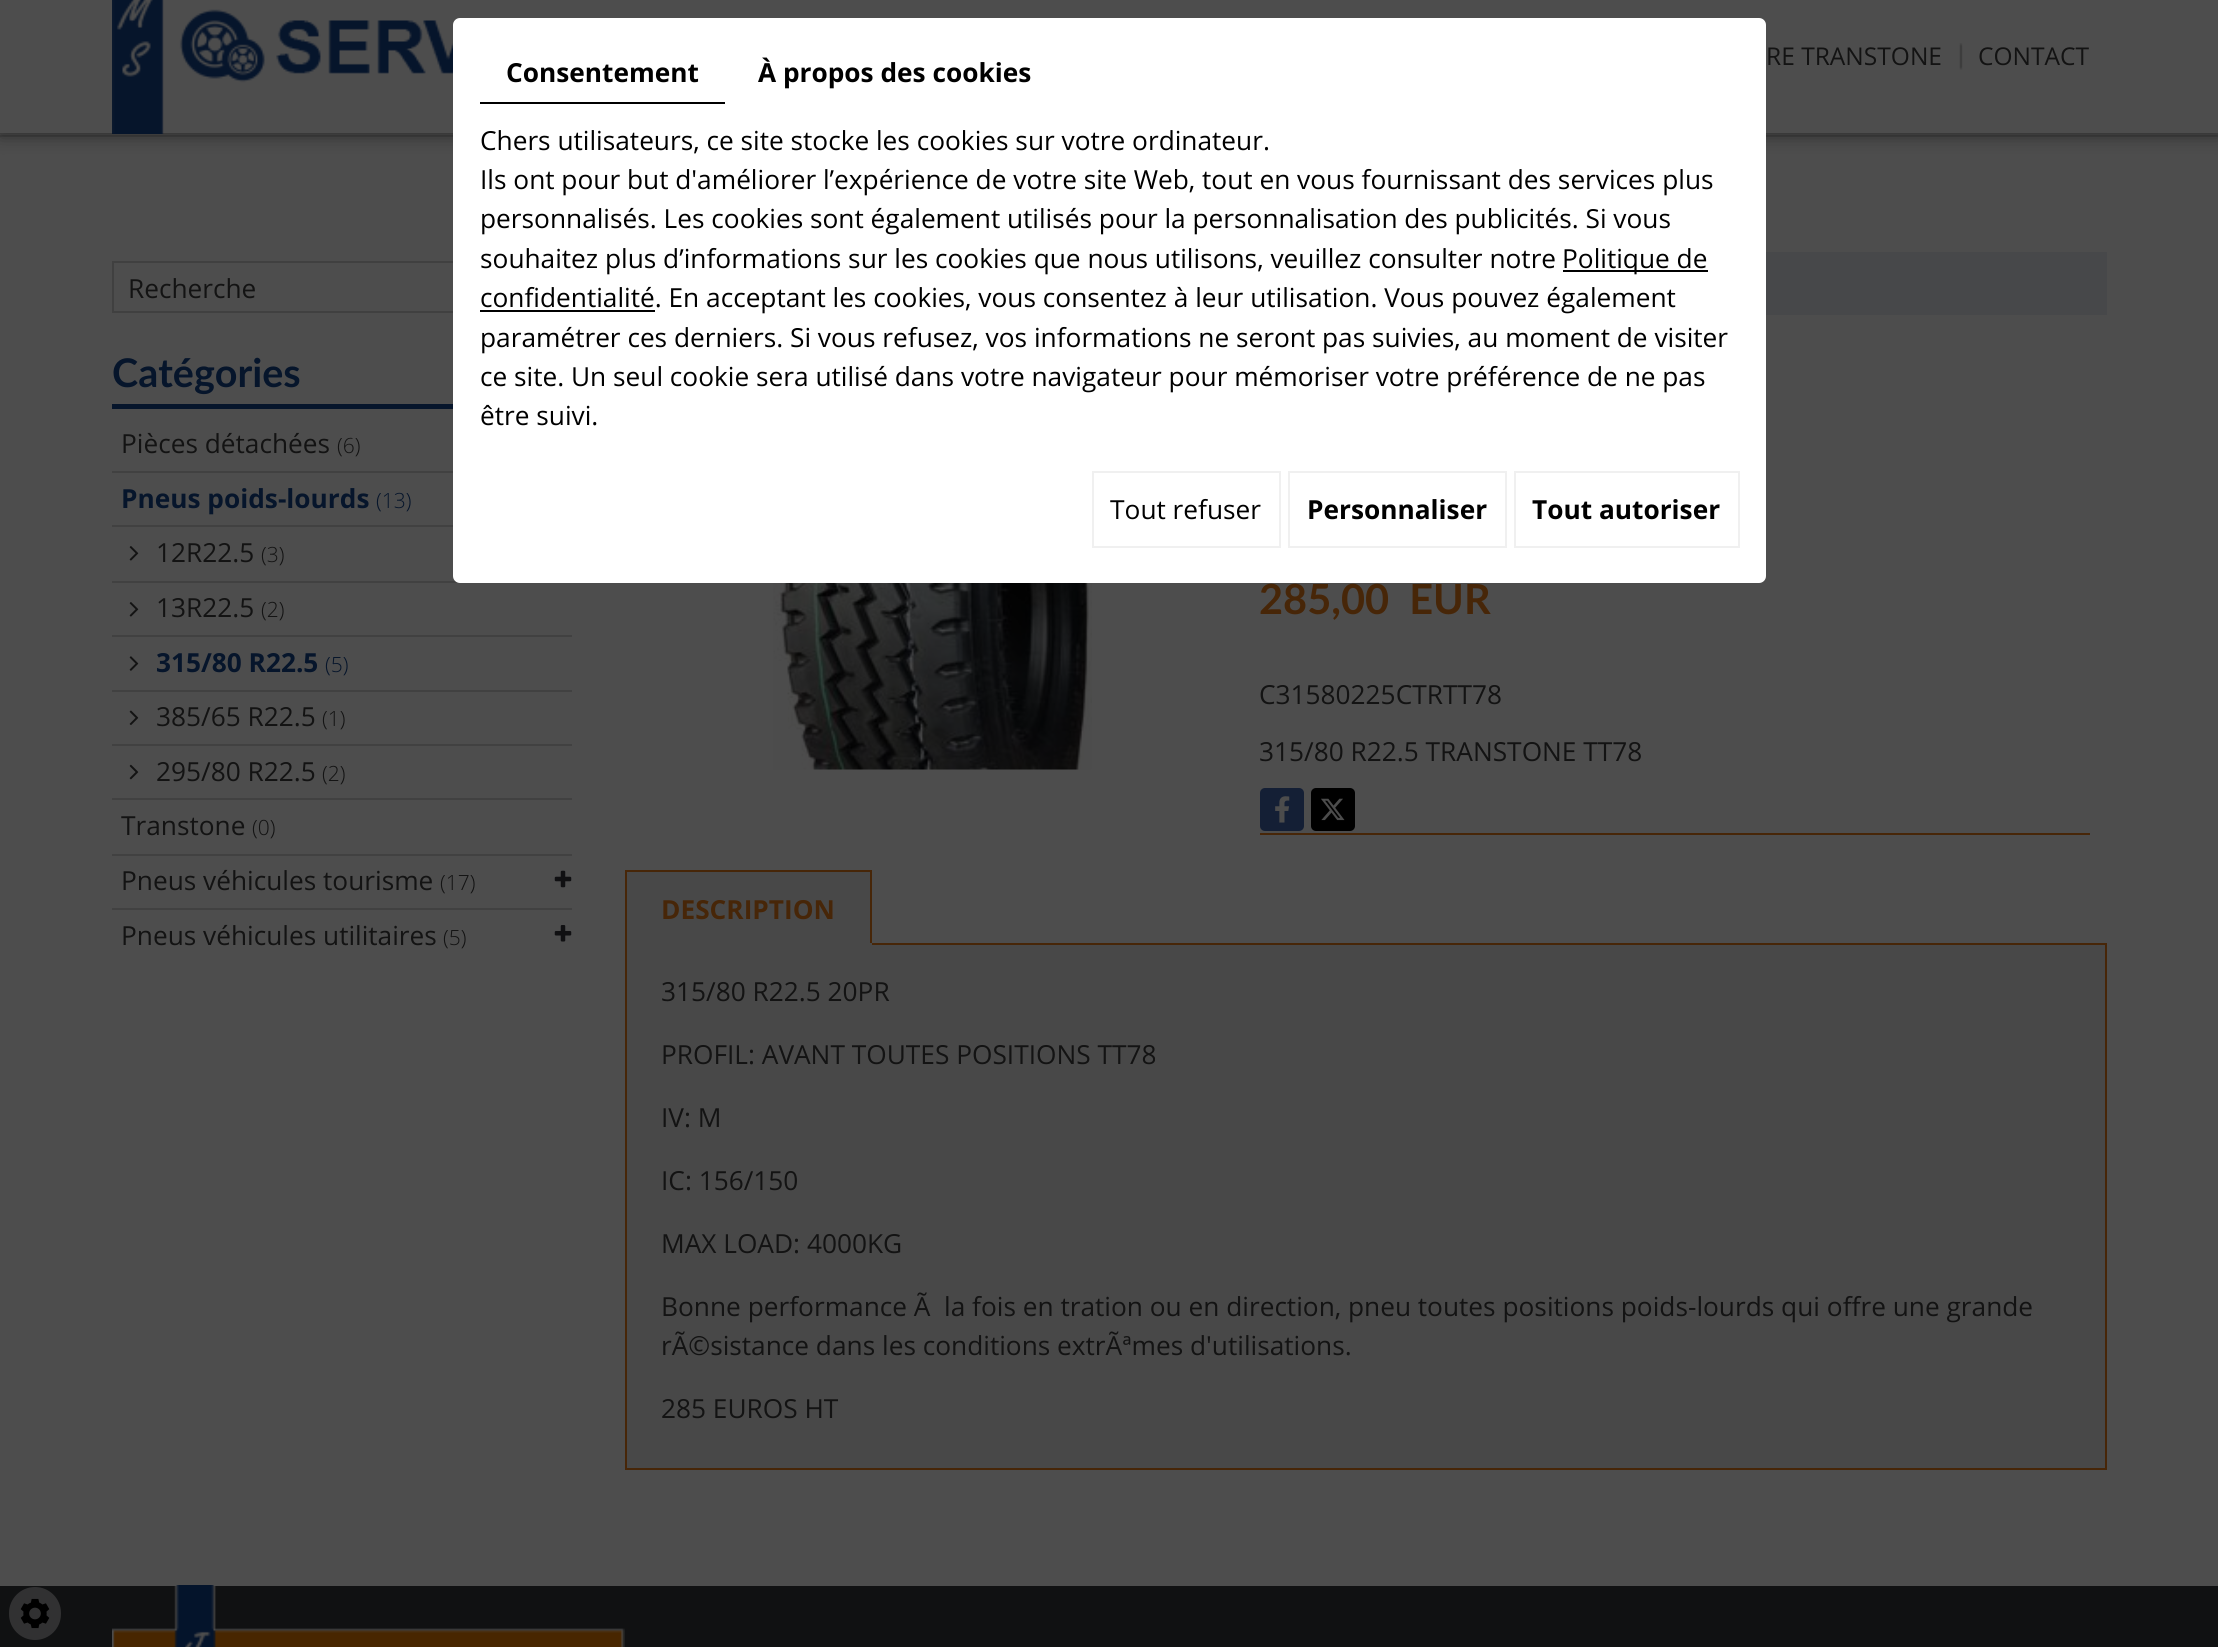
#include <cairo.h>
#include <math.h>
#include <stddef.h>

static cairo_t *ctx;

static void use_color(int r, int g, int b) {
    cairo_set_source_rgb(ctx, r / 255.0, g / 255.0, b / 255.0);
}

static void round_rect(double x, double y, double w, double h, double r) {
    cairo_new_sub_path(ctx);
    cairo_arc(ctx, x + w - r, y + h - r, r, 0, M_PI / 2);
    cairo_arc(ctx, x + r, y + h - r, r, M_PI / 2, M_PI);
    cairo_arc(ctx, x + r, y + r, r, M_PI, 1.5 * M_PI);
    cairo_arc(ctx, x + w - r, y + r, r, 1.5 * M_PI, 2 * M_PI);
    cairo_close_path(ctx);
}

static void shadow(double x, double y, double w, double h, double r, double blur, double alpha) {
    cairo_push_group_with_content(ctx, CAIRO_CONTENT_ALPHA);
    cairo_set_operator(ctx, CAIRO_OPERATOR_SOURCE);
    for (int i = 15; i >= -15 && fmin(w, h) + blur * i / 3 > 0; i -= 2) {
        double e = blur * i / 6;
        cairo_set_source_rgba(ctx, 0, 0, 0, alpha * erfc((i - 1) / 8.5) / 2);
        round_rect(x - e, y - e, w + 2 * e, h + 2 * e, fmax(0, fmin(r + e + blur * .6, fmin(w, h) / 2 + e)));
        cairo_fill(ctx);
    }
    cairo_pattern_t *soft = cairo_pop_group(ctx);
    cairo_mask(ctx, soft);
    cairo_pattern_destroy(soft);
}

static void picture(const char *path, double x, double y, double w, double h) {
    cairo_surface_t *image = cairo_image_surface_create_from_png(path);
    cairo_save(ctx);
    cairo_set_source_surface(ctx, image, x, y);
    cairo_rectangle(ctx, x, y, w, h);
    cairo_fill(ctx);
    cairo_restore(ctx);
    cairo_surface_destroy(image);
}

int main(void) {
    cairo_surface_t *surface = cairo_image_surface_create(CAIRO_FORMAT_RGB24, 2218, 1647);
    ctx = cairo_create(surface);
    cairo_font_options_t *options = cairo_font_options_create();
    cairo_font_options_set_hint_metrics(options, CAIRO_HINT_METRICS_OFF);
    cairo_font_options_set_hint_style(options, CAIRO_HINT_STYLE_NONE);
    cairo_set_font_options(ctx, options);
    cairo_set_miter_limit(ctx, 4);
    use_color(77, 77, 77);
    cairo_paint(ctx);
    use_color(67, 67, 67);
    cairo_rectangle(ctx, 0, 135, 2218, 2);
    cairo_fill(ctx);
    use_color(0, 0, 0);
    shadow(0, -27, 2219, 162, 0, 9, 0.45);
    use_color(77, 77, 77);
    cairo_rectangle(ctx, 0, 0, 2218, 133);
    cairo_fill(ctx);
    picture("img1.png", 112, 0, 341, 134);
    cairo_select_font_face(ctx, "Open Sans", CAIRO_FONT_SLANT_NORMAL, CAIRO_FONT_WEIGHT_NORMAL);
    cairo_set_font_size(ctx, 24.5);
    use_color(19, 19, 19);
    cairo_move_to(ctx, 1766, 65);
    cairo_show_text(ctx, "RE TRANSTONE");
    picture("img2.png", 1959, 43, 4, 27);
    cairo_move_to(ctx, 1978, 65);
    cairo_show_text(ctx, "CONTACT");
    cairo_rectangle(ctx, 113, 262, 458, 50);
    use_color(64, 64, 64);
    cairo_stroke(ctx);
    cairo_set_font_size(ctx, 26.25);
    use_color(19, 19, 19);
    cairo_move_to(ctx, 128, 298);
    cairo_show_text(ctx, "Recherche");
    use_color(6, 21, 43);
    cairo_rectangle(ctx, 112, 404, 341, 5);
    cairo_fill(ctx);
    cairo_select_font_face(ctx, "Lato", CAIRO_FONT_SLANT_NORMAL, CAIRO_FONT_WEIGHT_BOLD);
    cairo_set_font_size(ctx, 39.5);
    cairo_move_to(ctx, 112, 387);
    cairo_show_text(ctx, "Catégories");
    cairo_select_font_face(ctx, "Open Sans", CAIRO_FONT_SLANT_NORMAL, CAIRO_FONT_WEIGHT_NORMAL);
    cairo_set_font_size(ctx, 26.25);
    use_color(19, 19, 19);
    cairo_move_to(ctx, 121, 453);
    cairo_show_text(ctx, "Pièces détachées");
    cairo_select_font_face(ctx, "Open Sans Light", CAIRO_FONT_SLANT_NORMAL, CAIRO_FONT_WEIGHT_NORMAL);
    cairo_set_font_size(ctx, 21);
    cairo_move_to(ctx, 337, 453);
    cairo_show_text(ctx, "(6)");
    use_color(65, 65, 65);
    cairo_rectangle(ctx, 112, 471, 341, 2);
    cairo_fill(ctx);
    cairo_select_font_face(ctx, "Open Sans", CAIRO_FONT_SLANT_NORMAL, CAIRO_FONT_WEIGHT_BOLD);
    cairo_set_font_size(ctx, 26.25);
    use_color(6, 21, 43);
    cairo_move_to(ctx, 121, 508);
    cairo_show_text(ctx, "Pneus poids-lourds");
    cairo_select_font_face(ctx, "Open Sans Light", CAIRO_FONT_SLANT_NORMAL, CAIRO_FONT_WEIGHT_NORMAL);
    cairo_set_font_size(ctx, 21);
    cairo_move_to(ctx, 376, 508);
    cairo_show_text(ctx, "(13)");
    use_color(65, 65, 65);
    cairo_rectangle(ctx, 112, 525, 341, 2);
    cairo_fill(ctx);
    picture("img3.png", 129, 546, 10, 15);
    cairo_select_font_face(ctx, "Open Sans", CAIRO_FONT_SLANT_NORMAL, CAIRO_FONT_WEIGHT_NORMAL);
    cairo_set_font_size(ctx, 26.25);
    use_color(19, 19, 19);
    cairo_move_to(ctx, 156, 562);
    cairo_show_text(ctx, "12R22.5");
    cairo_select_font_face(ctx, "Open Sans Light", CAIRO_FONT_SLANT_NORMAL, CAIRO_FONT_WEIGHT_NORMAL);
    cairo_set_font_size(ctx, 21);
    cairo_move_to(ctx, 261, 562);
    cairo_show_text(ctx, "(3)");
    use_color(65, 65, 65);
    cairo_rectangle(ctx, 112, 581, 348, 2);
    cairo_fill(ctx);
    picture("img3.png", 129, 602, 10, 15);
    cairo_select_font_face(ctx, "Open Sans", CAIRO_FONT_SLANT_NORMAL, CAIRO_FONT_WEIGHT_NORMAL);
    cairo_set_font_size(ctx, 26.25);
    use_color(19, 19, 19);
    cairo_move_to(ctx, 156, 617);
    cairo_show_text(ctx, "13R22.5");
    cairo_select_font_face(ctx, "Open Sans Light", CAIRO_FONT_SLANT_NORMAL, CAIRO_FONT_WEIGHT_NORMAL);
    cairo_set_font_size(ctx, 21);
    cairo_move_to(ctx, 261, 617);
    cairo_show_text(ctx, "(2)");
    use_color(65, 65, 65);
    cairo_rectangle(ctx, 112, 635, 460, 2);
    cairo_fill(ctx);
    picture("img4.png", 129, 656, 10, 15);
    cairo_select_font_face(ctx, "Open Sans", CAIRO_FONT_SLANT_NORMAL, CAIRO_FONT_WEIGHT_BOLD);
    cairo_set_font_size(ctx, 26.25);
    use_color(6, 21, 43);
    cairo_move_to(ctx, 156, 672);
    cairo_show_text(ctx, "315/80 R22.5");
    cairo_select_font_face(ctx, "Open Sans Light", CAIRO_FONT_SLANT_NORMAL, CAIRO_FONT_WEIGHT_NORMAL);
    cairo_set_font_size(ctx, 21);
    cairo_move_to(ctx, 325, 672);
    cairo_show_text(ctx, "(5)");
    use_color(65, 65, 65);
    cairo_rectangle(ctx, 112, 690, 460, 2);
    cairo_fill(ctx);
    picture("img5.png", 129, 710, 10, 16);
    cairo_select_font_face(ctx, "Open Sans", CAIRO_FONT_SLANT_NORMAL, CAIRO_FONT_WEIGHT_NORMAL);
    cairo_set_font_size(ctx, 26.25);
    use_color(19, 19, 19);
    cairo_move_to(ctx, 156, 726);
    cairo_show_text(ctx, "385/65 R22.5");
    cairo_select_font_face(ctx, "Open Sans Light", CAIRO_FONT_SLANT_NORMAL, CAIRO_FONT_WEIGHT_NORMAL);
    cairo_set_font_size(ctx, 21);
    cairo_move_to(ctx, 322, 726);
    cairo_show_text(ctx, "(1)");
    use_color(65, 65, 65);
    cairo_rectangle(ctx, 112, 744, 460, 2);
    cairo_fill(ctx);
    picture("img6.png", 129, 764, 10, 16);
    cairo_select_font_face(ctx, "Open Sans", CAIRO_FONT_SLANT_NORMAL, CAIRO_FONT_WEIGHT_NORMAL);
    cairo_set_font_size(ctx, 26.25);
    use_color(19, 19, 19);
    cairo_move_to(ctx, 156, 781);
    cairo_show_text(ctx, "295/80 R22.5");
    cairo_select_font_face(ctx, "Open Sans Light", CAIRO_FONT_SLANT_NORMAL, CAIRO_FONT_WEIGHT_NORMAL);
    cairo_set_font_size(ctx, 21);
    cairo_move_to(ctx, 322, 781);
    cairo_show_text(ctx, "(2)");
    use_color(65, 65, 65);
    cairo_rectangle(ctx, 112, 798, 460, 2);
    cairo_fill(ctx);
    cairo_select_font_face(ctx, "Open Sans", CAIRO_FONT_SLANT_NORMAL, CAIRO_FONT_WEIGHT_NORMAL);
    cairo_set_font_size(ctx, 26.25);
    use_color(19, 19, 19);
    cairo_move_to(ctx, 121, 835);
    cairo_show_text(ctx, "Transtone");
    cairo_select_font_face(ctx, "Open Sans Light", CAIRO_FONT_SLANT_NORMAL, CAIRO_FONT_WEIGHT_NORMAL);
    cairo_set_font_size(ctx, 21);
    cairo_move_to(ctx, 252, 835);
    cairo_show_text(ctx, "(0)");
    use_color(65, 65, 65);
    cairo_rectangle(ctx, 112, 854, 460, 2);
    cairo_fill(ctx);
    cairo_select_font_face(ctx, "Open Sans", CAIRO_FONT_SLANT_NORMAL, CAIRO_FONT_WEIGHT_NORMAL);
    cairo_set_font_size(ctx, 26.25);
    use_color(19, 19, 19);
    cairo_move_to(ctx, 121, 890);
    cairo_show_text(ctx, "Pneus véhicules tourisme");
    cairo_select_font_face(ctx, "Open Sans Light", CAIRO_FONT_SLANT_NORMAL, CAIRO_FONT_WEIGHT_NORMAL);
    cairo_set_font_size(ctx, 21);
    cairo_move_to(ctx, 440, 890);
    cairo_show_text(ctx, "(17)");
    picture("img7.png", 554, 870, 18, 18);
    use_color(65, 65, 65);
    cairo_rectangle(ctx, 112, 908, 460, 2);
    cairo_fill(ctx);
    cairo_select_font_face(ctx, "Open Sans", CAIRO_FONT_SLANT_NORMAL, CAIRO_FONT_WEIGHT_NORMAL);
    cairo_set_font_size(ctx, 26.25);
    use_color(19, 19, 19);
    cairo_move_to(ctx, 121, 945);
    cairo_show_text(ctx, "Pneus véhicules utilitaires");
    cairo_select_font_face(ctx, "Open Sans Light", CAIRO_FONT_SLANT_NORMAL, CAIRO_FONT_WEIGHT_NORMAL);
    cairo_set_font_size(ctx, 21);
    cairo_move_to(ctx, 443, 945);
    cairo_show_text(ctx, "(5)");
    picture("img8.png", 554, 925, 18, 17);
    use_color(71, 72, 74);
    cairo_rectangle(ctx, 1766, 252, 341, 63);
    cairo_fill(ctx);
    picture("img9.png", 773, 583, 319, 187);
    cairo_select_font_face(ctx, "Lato", CAIRO_FONT_SLANT_NORMAL, CAIRO_FONT_WEIGHT_BOLD);
    cairo_set_font_size(ctx, 41.5);
    use_color(71, 38, 8);
    cairo_move_to(ctx, 1259, 614);
    cairo_show_text(ctx, "285,00  EUR");
    cairo_rectangle(ctx, 1260, 833, 830, 2);
    cairo_fill(ctx);
    cairo_select_font_face(ctx, "Open Sans", CAIRO_FONT_SLANT_NORMAL, CAIRO_FONT_WEIGHT_NORMAL);
    cairo_set_font_size(ctx, 26.25);
    use_color(19, 19, 19);
    cairo_move_to(ctx, 1259, 704);
    cairo_show_text(ctx, "C31580225CTRTT78");
    cairo_move_to(ctx, 1259, 761);
    cairo_show_text(ctx, "315/80 R22.5 TRANSTONE TT78");
    use_color(20, 31, 53);
    round_rect(1260, 788, 44, 43, 5);
    cairo_fill(ctx);
    picture("img10.png", 1275, 796, 15, 27);
    use_color(0, 0, 0);
    round_rect(1311, 788, 44, 43, 5);
    cairo_fill(ctx);
    picture("img11.png", 1321, 798, 24, 23);
    use_color(72, 72, 72);
    cairo_rectangle(ctx, 627, 872, 243, 71);
    cairo_fill(ctx);
    use_color(71, 38, 8);
    cairo_rectangle(ctx, 625, 870, 247, 2);
    cairo_fill(ctx);
    use_color(72, 72, 72);
    cairo_rectangle(ctx, 626, 944, 1480, 525);
    cairo_fill_preserve(ctx);
    use_color(71, 38, 8);
    cairo_stroke(ctx);
    cairo_rectangle(ctx, 870, 870, 2, 75);
    cairo_fill(ctx);
    use_color(72, 72, 72);
    cairo_rectangle(ctx, 625, 943, 247, 2);
    cairo_fill(ctx);
    use_color(71, 38, 8);
    cairo_rectangle(ctx, 625, 870, 2, 75);
    cairo_fill(ctx);
    cairo_select_font_face(ctx, "Open Sans", CAIRO_FONT_SLANT_NORMAL, CAIRO_FONT_WEIGHT_BOLD);
    cairo_move_to(ctx, 661, 919);
    cairo_show_text(ctx, "DESCRIPTION");
    cairo_select_font_face(ctx, "Open Sans", CAIRO_FONT_SLANT_NORMAL, CAIRO_FONT_WEIGHT_NORMAL);
    use_color(19, 19, 19);
    cairo_move_to(ctx, 661, 1001);
    cairo_show_text(ctx, "315/80 R22.5 20PR");
    cairo_move_to(ctx, 661, 1064);
    cairo_show_text(ctx, "PROFIL: AVANT TOUTES POSITIONS TT78");
    cairo_move_to(ctx, 661, 1127);
    cairo_show_text(ctx, "IV: M");
    cairo_move_to(ctx, 661, 1190);
    cairo_show_text(ctx, "IC: 156/150");
    cairo_move_to(ctx, 661, 1253);
    cairo_show_text(ctx, "MAX LOAD: 4000KG");
    cairo_move_to(ctx, 661, 1316);
    cairo_show_text(ctx, "Bonne performance Ã  la fois en tration ou en direction, pneu toutes positions poids-lourds qui offre une grande");
    cairo_move_to(ctx, 661, 1355);
    cairo_show_text(ctx, "rÃ©sistance dans les conditions extrÃªmes d'utilisations.");
    cairo_move_to(ctx, 661, 1418);
    cairo_show_text(ctx, "285 EUROS HT");
    use_color(16, 17, 18);
    cairo_rectangle(ctx, 0, 1586, 2218, 61);
    cairo_fill(ctx);
    picture("img12.png", 112, 1585, 513, 62);
    use_color(255, 255, 255);
    round_rect(453, 18, 1313, 565, 7);
    cairo_fill(ctx);
    use_color(0, 0, 0);
    cairo_rectangle(ctx, 480, 102, 245, 2);
    cairo_fill(ctx);
    cairo_select_font_face(ctx, "Open Sans", CAIRO_FONT_SLANT_NORMAL, CAIRO_FONT_WEIGHT_BOLD);
    cairo_move_to(ctx, 506, 82);
    cairo_show_text(ctx, "Consentement");
    cairo_move_to(ctx, 758, 82);
    cairo_show_text(ctx, "À propos des cookies");
    cairo_select_font_face(ctx, "Open Sans", CAIRO_FONT_SLANT_NORMAL, CAIRO_FONT_WEIGHT_NORMAL);
    cairo_move_to(ctx, 480, 150);
    cairo_show_text(ctx, "Chers utilisateurs, ce site stocke les cookies sur votre ordinateur.");
    cairo_move_to(ctx, 480, 189);
    cairo_show_text(ctx, "Ils ont pour but d'améliorer l’expérience de votre site Web, tout en vous fournissant des services plus");
    cairo_move_to(ctx, 480, 228);
    cairo_show_text(ctx, "personnalisés. Les cookies sont également utilisés pour la personnalisation des publicités. Si vous");
    cairo_move_to(ctx, 480, 268);
    cairo_show_text(ctx, "souhaitez plus d’informations sur les cookies que nous utilisons, veuillez consulter notre");
    cairo_rectangle(ctx, 1563, 270, 145, 2);
    cairo_fill(ctx);
    cairo_move_to(ctx, 1562, 268);
    cairo_show_text(ctx, "Politique de");
    cairo_rectangle(ctx, 480, 310, 175, 2);
    cairo_fill(ctx);
    cairo_move_to(ctx, 480, 307);
    cairo_show_text(ctx, "confidentialité. En acceptant les cookies, vous consentez à leur utilisation. Vous pouvez également");
    cairo_move_to(ctx, 480, 347);
    cairo_show_text(ctx, "paramétrer ces derniers. Si vous refusez, vos informations ne seront pas suivies, au moment de visiter");
    cairo_move_to(ctx, 480, 386);
    cairo_show_text(ctx, "ce site. Un seul cookie sera utilisé dans votre navigateur pour mémoriser votre préférence de ne pas");
    cairo_move_to(ctx, 480, 425);
    cairo_show_text(ctx, "être suivi.");
    cairo_rectangle(ctx, 1093, 472, 187, 75);
    use_color(240, 240, 240);
    cairo_stroke(ctx);
    use_color(0, 0, 0);
    cairo_move_to(ctx, 1110, 519);
    cairo_show_text(ctx, "Tout refuser");
    cairo_rectangle(ctx, 1289, 472, 217, 75);
    use_color(240, 240, 240);
    cairo_stroke(ctx);
    cairo_select_font_face(ctx, "Open Sans", CAIRO_FONT_SLANT_NORMAL, CAIRO_FONT_WEIGHT_BOLD);
    use_color(0, 0, 0);
    cairo_move_to(ctx, 1307, 519);
    cairo_show_text(ctx, "Personnaliser");
    cairo_rectangle(ctx, 1515, 472, 224, 75);
    use_color(240, 240, 240);
    cairo_stroke(ctx);
    use_color(0, 0, 0);
    cairo_move_to(ctx, 1532, 519);
    cairo_show_text(ctx, "Tout autoriser");
    use_color(49, 49, 50);
    round_rect(9, 1587, 52, 53, 26);
    cairo_fill(ctx);
    picture("img13.png", 20, 1598, 30, 31);
    cairo_surface_write_to_png(surface, "result.png");
    cairo_font_options_destroy(options);
    cairo_destroy(ctx);
    cairo_surface_destroy(surface);
    return 0;
}
